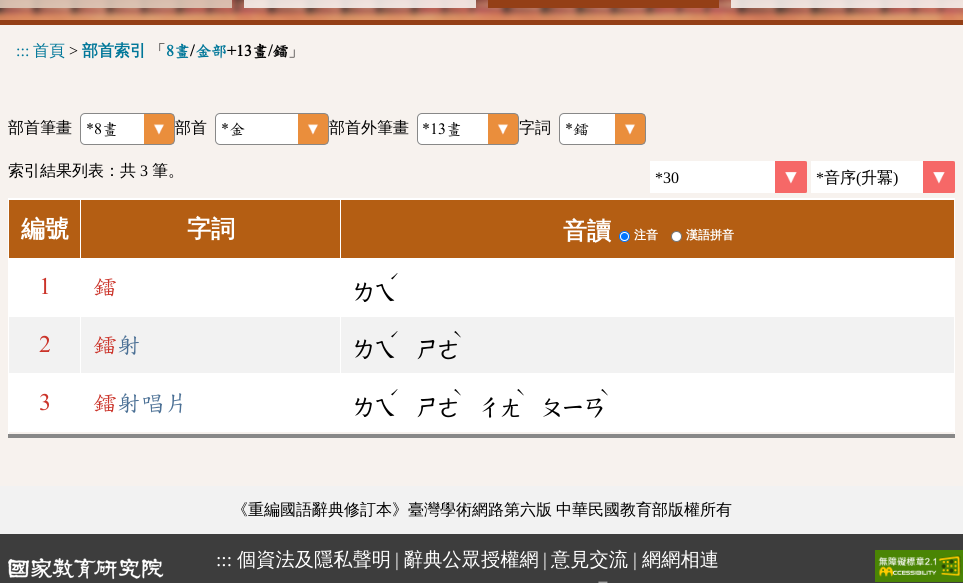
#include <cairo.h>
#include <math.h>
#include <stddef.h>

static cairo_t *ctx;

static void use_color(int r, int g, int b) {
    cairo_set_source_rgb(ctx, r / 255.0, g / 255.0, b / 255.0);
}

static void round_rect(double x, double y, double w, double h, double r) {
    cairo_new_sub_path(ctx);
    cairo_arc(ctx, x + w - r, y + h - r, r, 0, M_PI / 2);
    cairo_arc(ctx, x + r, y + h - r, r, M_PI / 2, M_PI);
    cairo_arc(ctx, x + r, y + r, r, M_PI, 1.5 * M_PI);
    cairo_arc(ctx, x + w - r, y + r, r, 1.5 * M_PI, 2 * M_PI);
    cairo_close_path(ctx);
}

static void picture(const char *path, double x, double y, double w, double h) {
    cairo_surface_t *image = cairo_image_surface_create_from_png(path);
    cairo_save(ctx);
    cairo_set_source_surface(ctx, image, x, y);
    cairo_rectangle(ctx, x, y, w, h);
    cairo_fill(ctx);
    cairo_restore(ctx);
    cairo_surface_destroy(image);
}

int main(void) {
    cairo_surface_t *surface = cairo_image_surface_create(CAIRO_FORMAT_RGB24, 963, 583);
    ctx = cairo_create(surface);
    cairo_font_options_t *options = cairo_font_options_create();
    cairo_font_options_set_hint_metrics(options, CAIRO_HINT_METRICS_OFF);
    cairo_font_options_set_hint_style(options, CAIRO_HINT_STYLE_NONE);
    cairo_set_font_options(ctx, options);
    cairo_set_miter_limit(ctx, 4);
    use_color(255, 255, 255);
    cairo_paint(ctx);
    picture("img1.png", 0, 0, 963, 20);
    cairo_set_source_rgba(ctx, 0.871, 0.792, 0.729, 0.88);
    cairo_rectangle(ctx, 0, 0, 232, 8);
    cairo_fill(ctx);
    cairo_set_source_rgba(ctx, 0.969, 0.949, 0.933, 0.88);
    cairo_rectangle(ctx, 244, 0, 232, 8);
    cairo_fill(ctx);
    use_color(148, 63, 22);
    cairo_rectangle(ctx, 488, 0, 231, 8);
    cairo_fill(ctx);
    cairo_set_source_rgba(ctx, 0.969, 0.949, 0.933, 0.88);
    cairo_rectangle(ctx, 731, 0, 232, 8);
    cairo_fill(ctx);
    use_color(247, 242, 238);
    cairo_rectangle(ctx, 0, 25, 963, 461);
    cairo_fill(ctx);
    use_color(148, 63, 22);
    cairo_rectangle(ctx, 0, 20, 963, 5);
    cairo_fill(ctx);
    cairo_select_font_face(ctx, "Liberation Serif", CAIRO_FONT_SLANT_NORMAL, CAIRO_FONT_WEIGHT_NORMAL);
    cairo_set_font_size(ctx, 16);
    use_color(0, 119, 153);
    cairo_move_to(ctx, 16, 56);
    cairo_show_text(ctx, ":::");
    cairo_select_font_face(ctx, "WenQuanYi Zen Hei Medium", CAIRO_FONT_SLANT_NORMAL, CAIRO_FONT_WEIGHT_NORMAL);
    cairo_move_to(ctx, 33, 56);
    cairo_show_text(ctx, "首頁");
    cairo_select_font_face(ctx, "Liberation Serif", CAIRO_FONT_SLANT_NORMAL, CAIRO_FONT_WEIGHT_NORMAL);
    use_color(0, 0, 0);
    cairo_move_to(ctx, 69, 56);
    cairo_show_text(ctx, ">");
    cairo_select_font_face(ctx, "WenQuanYi Zen Hei", CAIRO_FONT_SLANT_NORMAL, CAIRO_FONT_WEIGHT_BOLD);
    use_color(0, 119, 153);
    cairo_move_to(ctx, 82, 56);
    cairo_show_text(ctx, "部首索引");
    cairo_select_font_face(ctx, "WenQuanYi Zen Hei Medium", CAIRO_FONT_SLANT_NORMAL, CAIRO_FONT_WEIGHT_NORMAL);
    use_color(0, 0, 0);
    cairo_move_to(ctx, 150, 56);
    cairo_show_text(ctx, "「");
    cairo_select_font_face(ctx, "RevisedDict", CAIRO_FONT_SLANT_NORMAL, CAIRO_FONT_WEIGHT_BOLD);
    use_color(0, 119, 153);
    cairo_move_to(ctx, 166, 56);
    cairo_show_text(ctx, "8畫");
    use_color(0, 0, 0);
    cairo_move_to(ctx, 190, 56);
    cairo_show_text(ctx, "/");
    use_color(0, 119, 153);
    cairo_move_to(ctx, 195, 56);
    cairo_show_text(ctx, "金部");
    use_color(0, 0, 0);
    cairo_move_to(ctx, 227, 56);
    cairo_show_text(ctx, "+13畫/鐳");
    cairo_select_font_face(ctx, "WenQuanYi Zen Hei Medium", CAIRO_FONT_SLANT_NORMAL, CAIRO_FONT_WEIGHT_NORMAL);
    cairo_move_to(ctx, 288, 56);
    cairo_show_text(ctx, "」");
    cairo_move_to(ctx, 8, 133);
    cairo_show_text(ctx, "部首筆畫");
    use_color(255, 255, 255);
    round_rect(80, 113, 95, 32, 5);
    cairo_fill(ctx);
    picture("img2.png", 144, 114, 30, 30);
    round_rect(80.5, 113.5, 94, 31, 4.5);
    use_color(136, 136, 136);
    cairo_set_line_width(ctx, 1);
    cairo_stroke(ctx);
    cairo_select_font_face(ctx, "RevisedDict", CAIRO_FONT_SLANT_NORMAL, CAIRO_FONT_WEIGHT_NORMAL);
    use_color(0, 0, 0);
    cairo_move_to(ctx, 86, 134);
    cairo_show_text(ctx, "*8畫");
    cairo_select_font_face(ctx, "WenQuanYi Zen Hei Medium", CAIRO_FONT_SLANT_NORMAL, CAIRO_FONT_WEIGHT_NORMAL);
    cairo_move_to(ctx, 175, 133);
    cairo_show_text(ctx, "部首");
    use_color(255, 255, 255);
    round_rect(215, 113, 114, 32, 5);
    cairo_fill(ctx);
    picture("img2.png", 298, 114, 30, 30);
    round_rect(215.5, 113.5, 113, 31, 4.5);
    use_color(136, 136, 136);
    cairo_stroke(ctx);
    cairo_select_font_face(ctx, "RevisedDict", CAIRO_FONT_SLANT_NORMAL, CAIRO_FONT_WEIGHT_NORMAL);
    use_color(0, 0, 0);
    cairo_move_to(ctx, 221, 134);
    cairo_show_text(ctx, "*金");
    cairo_select_font_face(ctx, "WenQuanYi Zen Hei Medium", CAIRO_FONT_SLANT_NORMAL, CAIRO_FONT_WEIGHT_NORMAL);
    cairo_move_to(ctx, 329, 133);
    cairo_show_text(ctx, "部首外筆畫");
    use_color(255, 255, 255);
    round_rect(417, 113, 102, 32, 5);
    cairo_fill(ctx);
    picture("img2.png", 488, 114, 30, 30);
    round_rect(417.5, 113.5, 101, 31, 4.5);
    use_color(136, 136, 136);
    cairo_stroke(ctx);
    cairo_select_font_face(ctx, "RevisedDict", CAIRO_FONT_SLANT_NORMAL, CAIRO_FONT_WEIGHT_NORMAL);
    use_color(0, 0, 0);
    cairo_move_to(ctx, 422, 134);
    cairo_show_text(ctx, "*13畫");
    cairo_select_font_face(ctx, "WenQuanYi Zen Hei Medium", CAIRO_FONT_SLANT_NORMAL, CAIRO_FONT_WEIGHT_NORMAL);
    cairo_move_to(ctx, 519, 133);
    cairo_show_text(ctx, "字詞");
    use_color(255, 255, 255);
    round_rect(559, 113, 87, 32, 5);
    cairo_fill(ctx);
    picture("img2.png", 615, 114, 30, 30);
    round_rect(559.5, 113.5, 86, 31, 4.5);
    use_color(136, 136, 136);
    cairo_stroke(ctx);
    cairo_select_font_face(ctx, "RevisedDict", CAIRO_FONT_SLANT_NORMAL, CAIRO_FONT_WEIGHT_NORMAL);
    use_color(0, 0, 0);
    cairo_move_to(ctx, 565, 134);
    cairo_show_text(ctx, "*鐳");
    cairo_select_font_face(ctx, "WenQuanYi Zen Hei Medium", CAIRO_FONT_SLANT_NORMAL, CAIRO_FONT_WEIGHT_NORMAL);
    cairo_move_to(ctx, 8, 176);
    cairo_show_text(ctx, "索引結果列表：共");
    cairo_select_font_face(ctx, "Liberation Serif", CAIRO_FONT_SLANT_NORMAL, CAIRO_FONT_WEIGHT_NORMAL);
    cairo_move_to(ctx, 140, 176);
    cairo_show_text(ctx, "3");
    cairo_select_font_face(ctx, "WenQuanYi Zen Hei Medium", CAIRO_FONT_SLANT_NORMAL, CAIRO_FONT_WEIGHT_NORMAL);
    cairo_move_to(ctx, 152, 176);
    cairo_show_text(ctx, "筆。");
    use_color(255, 255, 255);
    cairo_rectangle(ctx, 650, 161, 125, 32);
    cairo_fill(ctx);
    picture("img3.png", 775, 161, 32, 32);
    cairo_select_font_face(ctx, "Liberation Serif", CAIRO_FONT_SLANT_NORMAL, CAIRO_FONT_WEIGHT_NORMAL);
    use_color(0, 0, 0);
    cairo_move_to(ctx, 655, 183);
    cairo_show_text(ctx, "*30");
    use_color(255, 255, 255);
    cairo_rectangle(ctx, 811, 161, 112, 32);
    cairo_fill(ctx);
    picture("img3.png", 923, 161, 32, 32);
    use_color(0, 0, 0);
    cairo_move_to(ctx, 816, 183);
    cairo_show_text(ctx, "*");
    cairo_select_font_face(ctx, "WenQuanYi Zen Hei Medium", CAIRO_FONT_SLANT_NORMAL, CAIRO_FONT_WEIGHT_NORMAL);
    cairo_move_to(ctx, 824, 183);
    cairo_show_text(ctx, "音序");
    cairo_select_font_face(ctx, "Liberation Serif", CAIRO_FONT_SLANT_NORMAL, CAIRO_FONT_WEIGHT_NORMAL);
    cairo_move_to(ctx, 856, 183);
    cairo_show_text(ctx, "(");
    cairo_select_font_face(ctx, "WenQuanYi Zen Hei Medium", CAIRO_FONT_SLANT_NORMAL, CAIRO_FONT_WEIGHT_NORMAL);
    cairo_move_to(ctx, 861, 183);
    cairo_show_text(ctx, "升冪");
    cairo_select_font_face(ctx, "Liberation Serif", CAIRO_FONT_SLANT_NORMAL, CAIRO_FONT_WEIGHT_NORMAL);
    cairo_move_to(ctx, 893, 183);
    cairo_show_text(ctx, ")");
    use_color(255, 255, 255);
    cairo_rectangle(ctx, 8, 431, 947, 1);
    cairo_fill(ctx);
    cairo_rectangle(ctx, 954, 431, 1, 6);
    cairo_fill(ctx);
    cairo_rectangle(ctx, 8, 431, 1, 6);
    cairo_fill(ctx);
    use_color(136, 136, 136);
    cairo_rectangle(ctx, 8, 434, 947, 4);
    cairo_fill(ctx);
    use_color(255, 255, 255);
    cairo_rectangle(ctx, 8, 198, 947, 1);
    cairo_fill(ctx);
    use_color(180, 94, 19);
    cairo_rectangle(ctx, 9, 200, 71, 58);
    cairo_fill(ctx);
    use_color(255, 255, 255);
    cairo_rectangle(ctx, 340, 199, 615, 1);
    cairo_fill(ctx);
    cairo_rectangle(ctx, 8, 258, 947, 1);
    cairo_fill(ctx);
    cairo_rectangle(ctx, 340, 199, 1, 60);
    cairo_fill(ctx);
    cairo_rectangle(ctx, 80, 199, 261, 1);
    cairo_fill(ctx);
    cairo_rectangle(ctx, 80, 199, 1, 60);
    cairo_fill(ctx);
    cairo_rectangle(ctx, 8, 199, 73, 1);
    cairo_fill(ctx);
    cairo_rectangle(ctx, 8, 373, 1, 59);
    cairo_fill(ctx);
    cairo_rectangle(ctx, 8, 316, 1, 58);
    cairo_fill(ctx);
    cairo_rectangle(ctx, 8, 258, 1, 59);
    cairo_fill(ctx);
    cairo_rectangle(ctx, 8, 199, 1, 60);
    cairo_fill(ctx);
    cairo_select_font_face(ctx, "WenQuanYi Zen Hei", CAIRO_FONT_SLANT_NORMAL, CAIRO_FONT_WEIGHT_BOLD);
    cairo_set_font_size(ctx, 24);
    cairo_move_to(ctx, 21, 237);
    cairo_show_text(ctx, "編號");
    use_color(180, 94, 19);
    cairo_rectangle(ctx, 81, 200, 259, 58);
    cairo_fill(ctx);
    use_color(255, 255, 255);
    cairo_move_to(ctx, 187, 237);
    cairo_show_text(ctx, "字詞");
    use_color(180, 94, 19);
    cairo_rectangle(ctx, 341, 200, 613, 58);
    cairo_fill(ctx);
    use_color(255, 255, 255);
    cairo_rectangle(ctx, 954, 199, 1, 60);
    cairo_fill(ctx);
    cairo_move_to(ctx, 563, 239);
    cairo_show_text(ctx, "音讀");
    cairo_new_path(ctx);
    cairo_arc(ctx, 624.5, 236.5, 5, 0, 2 * M_PI);
    cairo_fill_preserve(ctx);
    use_color(0, 117, 255);
    cairo_stroke(ctx);
    cairo_arc(ctx, 624.5, 236.5, 3.5, 0, 2 * M_PI);
    cairo_fill(ctx);
    cairo_set_font_size(ctx, 12);
    use_color(255, 255, 255);
    cairo_move_to(ctx, 634, 239);
    cairo_show_text(ctx, "注音");
    cairo_new_path(ctx);
    cairo_arc(ctx, 676.5, 236.5, 5, 0, 2 * M_PI);
    cairo_fill_preserve(ctx);
    use_color(118, 118, 118);
    cairo_stroke(ctx);
    use_color(255, 255, 255);
    cairo_move_to(ctx, 686, 239);
    cairo_show_text(ctx, "漢語拼音");
    cairo_rectangle(ctx, 9, 259, 946, 172);
    cairo_fill(ctx);
    cairo_select_font_face(ctx, "RevisedDict", CAIRO_FONT_SLANT_NORMAL, CAIRO_FONT_WEIGHT_NORMAL);
    cairo_set_font_size(ctx, 24);
    use_color(203, 52, 42);
    cairo_move_to(ctx, 39, 294);
    cairo_show_text(ctx, "1");
    cairo_move_to(ctx, 93, 294);
    cairo_show_text(ctx, "鐳");
    cairo_set_font_size(ctx, 15);
    use_color(0, 0, 0);
    cairo_move_to(ctx, 387, 281);
    cairo_show_text(ctx, "ˊ");
    cairo_set_font_size(ctx, 21.5);
    cairo_move_to(ctx, 353, 299);
    cairo_show_text(ctx, "ㄌㄟ");
    use_color(242, 242, 242);
    cairo_rectangle(ctx, 9, 317, 945, 56);
    cairo_fill(ctx);
    cairo_set_font_size(ctx, 24);
    use_color(203, 52, 42);
    cairo_move_to(ctx, 39, 352);
    cairo_show_text(ctx, "2");
    use_color(255, 255, 255);
    cairo_rectangle(ctx, 80, 316, 1, 58);
    cairo_fill(ctx);
    use_color(203, 52, 42);
    cairo_move_to(ctx, 93, 352);
    cairo_show_text(ctx, "鐳");
    use_color(75, 112, 149);
    cairo_move_to(ctx, 117, 352);
    cairo_show_text(ctx, "射");
    use_color(255, 255, 255);
    cairo_rectangle(ctx, 340, 316, 1, 58);
    cairo_fill(ctx);
    cairo_set_font_size(ctx, 15);
    use_color(0, 0, 0);
    cairo_move_to(ctx, 387, 339);
    cairo_show_text(ctx, "ˊ");
    cairo_set_font_size(ctx, 21.5);
    cairo_move_to(ctx, 353, 356);
    cairo_show_text(ctx, "ㄌㄟ");
    cairo_set_font_size(ctx, 15);
    cairo_move_to(ctx, 450, 339);
    cairo_show_text(ctx, "ˋ");
    cairo_set_font_size(ctx, 21.5);
    cairo_move_to(ctx, 416, 356);
    cairo_show_text(ctx, "ㄕㄜ");
    cairo_set_font_size(ctx, 24);
    use_color(203, 52, 42);
    cairo_move_to(ctx, 39, 410);
    cairo_show_text(ctx, "3");
    cairo_move_to(ctx, 93, 410);
    cairo_show_text(ctx, "鐳");
    use_color(75, 112, 149);
    cairo_move_to(ctx, 117, 410);
    cairo_show_text(ctx, "射唱片");
    cairo_set_font_size(ctx, 15);
    use_color(0, 0, 0);
    cairo_move_to(ctx, 387, 397);
    cairo_show_text(ctx, "ˊ");
    cairo_set_font_size(ctx, 21.5);
    cairo_move_to(ctx, 353, 414);
    cairo_show_text(ctx, "ㄌㄟ");
    cairo_set_font_size(ctx, 15);
    cairo_move_to(ctx, 450, 397);
    cairo_show_text(ctx, "ˋ");
    cairo_set_font_size(ctx, 21.5);
    cairo_move_to(ctx, 416, 414);
    cairo_show_text(ctx, "ㄕㄜ");
    cairo_set_font_size(ctx, 15);
    cairo_move_to(ctx, 513, 397);
    cairo_show_text(ctx, "ˋ");
    cairo_set_font_size(ctx, 21.5);
    cairo_move_to(ctx, 479, 414);
    cairo_show_text(ctx, "ㄔㄤ");
    cairo_set_font_size(ctx, 15);
    cairo_move_to(ctx, 597, 397);
    cairo_show_text(ctx, "ˋ");
    cairo_set_font_size(ctx, 21.5);
    cairo_move_to(ctx, 541, 414);
    cairo_show_text(ctx, "ㄆㄧㄢ");
    use_color(61, 61, 61);
    cairo_rectangle(ctx, 0, 534, 963, 49);
    cairo_fill(ctx);
    use_color(242, 242, 242);
    cairo_rectangle(ctx, 0, 486, 963, 48);
    cairo_fill(ctx);
    cairo_select_font_face(ctx, "WenQuanYi Zen Hei Medium", CAIRO_FONT_SLANT_NORMAL, CAIRO_FONT_WEIGHT_NORMAL);
    cairo_set_font_size(ctx, 16);
    use_color(0, 0, 0);
    cairo_move_to(ctx, 232, 515);
    cairo_show_text(ctx, "《重編國語辭典修訂本》臺灣學術網路第六版");
    cairo_move_to(ctx, 556, 515);
    cairo_show_text(ctx, "中華民國教育部版權所有");
    picture("img4.png", 8, 558, 156, 22);
    cairo_select_font_face(ctx, "Liberation Serif", CAIRO_FONT_SLANT_NORMAL, CAIRO_FONT_WEIGHT_NORMAL);
    cairo_set_font_size(ctx, 19.25);
    use_color(255, 255, 255);
    cairo_move_to(ctx, 216, 566);
    cairo_show_text(ctx, ":::");
    cairo_select_font_face(ctx, "WenQuanYi Zen Hei Medium", CAIRO_FONT_SLANT_NORMAL, CAIRO_FONT_WEIGHT_NORMAL);
    cairo_move_to(ctx, 237, 566);
    cairo_show_text(ctx, "個資法及隱私聲明");
    cairo_select_font_face(ctx, "Liberation Serif", CAIRO_FONT_SLANT_NORMAL, CAIRO_FONT_WEIGHT_NORMAL);
    cairo_move_to(ctx, 395, 566);
    cairo_show_text(ctx, "|");
    cairo_select_font_face(ctx, "WenQuanYi Zen Hei Medium", CAIRO_FONT_SLANT_NORMAL, CAIRO_FONT_WEIGHT_NORMAL);
    cairo_move_to(ctx, 404, 566);
    cairo_show_text(ctx, "辭典公眾授權網");
    cairo_select_font_face(ctx, "Liberation Serif", CAIRO_FONT_SLANT_NORMAL, CAIRO_FONT_WEIGHT_NORMAL);
    cairo_move_to(ctx, 543, 566);
    cairo_show_text(ctx, "|");
    cairo_select_font_face(ctx, "WenQuanYi Zen Hei Medium", CAIRO_FONT_SLANT_NORMAL, CAIRO_FONT_WEIGHT_NORMAL);
    cairo_move_to(ctx, 551, 566);
    cairo_show_text(ctx, "意見交流");
    cairo_select_font_face(ctx, "Liberation Serif", CAIRO_FONT_SLANT_NORMAL, CAIRO_FONT_WEIGHT_NORMAL);
    cairo_move_to(ctx, 633, 566);
    cairo_show_text(ctx, "|");
    cairo_select_font_face(ctx, "WenQuanYi Zen Hei Medium", CAIRO_FONT_SLANT_NORMAL, CAIRO_FONT_WEIGHT_NORMAL);
    cairo_move_to(ctx, 642, 566);
    cairo_show_text(ctx, "網網相連");
    cairo_set_font_size(ctx, 10);
    cairo_move_to(ctx, 598, 586);
    cairo_show_text(ctx, "一");
    picture("img5.png", 875, 550, 88, 32);
    cairo_surface_write_to_png(surface, "result.png");
    cairo_font_options_destroy(options);
    cairo_destroy(ctx);
    cairo_surface_destroy(surface);
    return 0;
}
